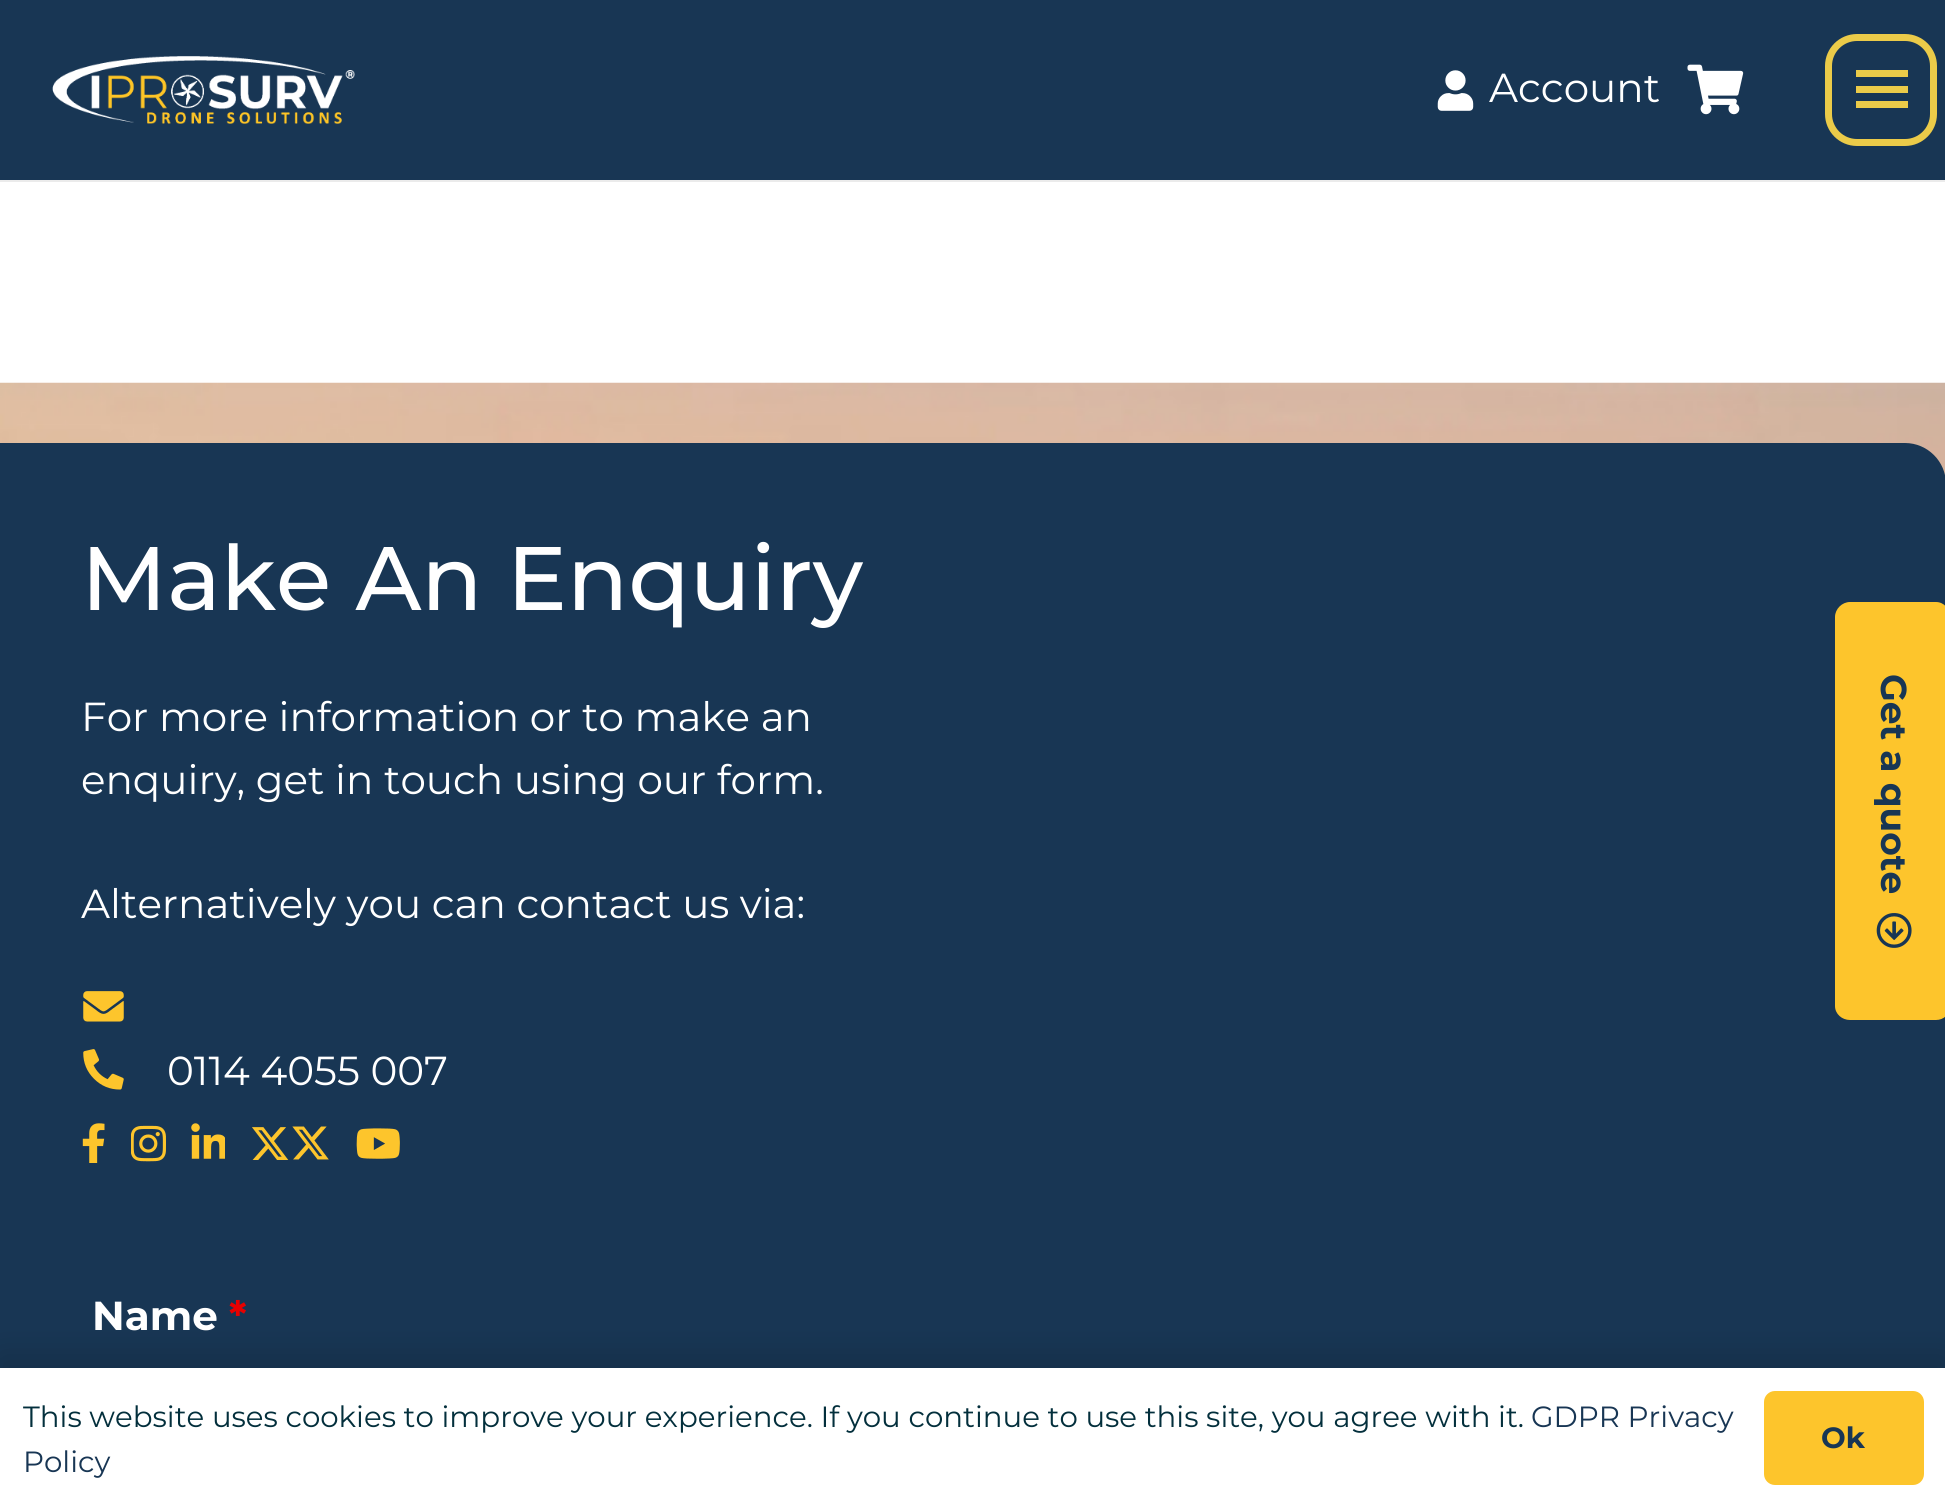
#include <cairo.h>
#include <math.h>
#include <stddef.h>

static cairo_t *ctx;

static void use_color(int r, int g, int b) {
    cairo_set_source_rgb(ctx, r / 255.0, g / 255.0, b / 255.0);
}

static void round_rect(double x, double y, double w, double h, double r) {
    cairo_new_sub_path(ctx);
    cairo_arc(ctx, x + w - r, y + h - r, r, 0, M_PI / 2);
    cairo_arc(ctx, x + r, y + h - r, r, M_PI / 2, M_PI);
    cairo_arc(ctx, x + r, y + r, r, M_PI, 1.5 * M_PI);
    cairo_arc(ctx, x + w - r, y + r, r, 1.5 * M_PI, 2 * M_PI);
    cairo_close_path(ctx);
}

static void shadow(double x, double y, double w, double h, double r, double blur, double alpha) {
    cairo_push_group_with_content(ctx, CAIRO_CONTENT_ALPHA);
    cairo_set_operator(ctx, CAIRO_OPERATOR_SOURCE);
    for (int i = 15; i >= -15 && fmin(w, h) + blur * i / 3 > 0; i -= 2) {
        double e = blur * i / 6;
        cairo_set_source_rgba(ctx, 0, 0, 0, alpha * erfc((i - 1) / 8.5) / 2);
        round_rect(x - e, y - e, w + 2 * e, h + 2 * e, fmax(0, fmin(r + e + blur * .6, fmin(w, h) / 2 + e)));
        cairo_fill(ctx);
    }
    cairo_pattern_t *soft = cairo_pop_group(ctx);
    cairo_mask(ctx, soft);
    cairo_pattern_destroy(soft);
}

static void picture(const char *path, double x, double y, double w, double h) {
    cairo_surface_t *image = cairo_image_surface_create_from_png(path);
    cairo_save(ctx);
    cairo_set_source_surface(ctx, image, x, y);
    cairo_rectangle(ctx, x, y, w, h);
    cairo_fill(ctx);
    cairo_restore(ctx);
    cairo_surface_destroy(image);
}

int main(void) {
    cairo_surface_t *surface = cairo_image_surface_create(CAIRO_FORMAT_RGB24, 1945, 1507);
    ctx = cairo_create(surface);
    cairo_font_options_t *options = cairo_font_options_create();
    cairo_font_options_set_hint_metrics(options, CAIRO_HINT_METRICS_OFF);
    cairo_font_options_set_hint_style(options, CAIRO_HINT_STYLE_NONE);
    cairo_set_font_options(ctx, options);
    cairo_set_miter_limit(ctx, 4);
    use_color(255, 255, 255);
    cairo_paint(ctx);
    use_color(235, 235, 235);
    cairo_rectangle(ctx, 0, 180, 1945, 2);
    cairo_fill(ctx);
    use_color(24, 54, 84);
    cairo_rectangle(ctx, 0, 0, 1945, 180);
    cairo_fill(ctx);
    picture("img1.png", 52, 56, 303, 68);
    picture("img2.png", 1437, 70, 37, 41);
    cairo_select_font_face(ctx, "Montserrat", CAIRO_FONT_SLANT_NORMAL, CAIRO_FONT_WEIGHT_NORMAL);
    cairo_set_font_size(ctx, 40.5);
    use_color(255, 255, 255);
    cairo_move_to(ctx, 1489, 102);
    cairo_show_text(ctx, "Account");
    picture("img3.png", 1687, 64, 57, 51);
    round_rect(1828.5, 37.5, 105, 105, 28.5);
    use_color(235, 203, 73);
    cairo_set_line_width(ctx, 7);
    cairo_stroke(ctx);
    cairo_rectangle(ctx, 1856, 86, 52, 7);
    cairo_fill(ctx);
    cairo_rectangle(ctx, 1856, 70, 52, 7);
    cairo_fill(ctx);
    cairo_rectangle(ctx, 1856, 101, 52, 7);
    cairo_fill(ctx);
    picture("img4.png", 0, 382, 1945, 93);
    use_color(24, 54, 84);
    cairo_new_path(ctx);
    cairo_move_to(ctx, 0, 443);
    cairo_line_to(ctx, 1905, 443);
    cairo_curve_to(ctx, 1927.5, 443, 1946, 461.5, 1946, 484);
    cairo_line_to(ctx, 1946, 1507);
    cairo_curve_to(ctx, 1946, 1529.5, 1927.5, 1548, 1905, 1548);
    cairo_line_to(ctx, 0, 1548);
    cairo_close_path(ctx);
    cairo_fill(ctx);
    cairo_select_font_face(ctx, "Montserrat Medium", CAIRO_FONT_SLANT_NORMAL, CAIRO_FONT_WEIGHT_NORMAL);
    cairo_set_font_size(ctx, 90);
    use_color(255, 255, 255);
    cairo_move_to(ctx, 81, 610);
    cairo_show_text(ctx, "Make An Enquiry");
    cairo_select_font_face(ctx, "Montserrat", CAIRO_FONT_SLANT_NORMAL, CAIRO_FONT_WEIGHT_NORMAL);
    cairo_set_font_size(ctx, 40.5);
    cairo_move_to(ctx, 81, 731);
    cairo_show_text(ctx, "For more information or to make an");
    cairo_move_to(ctx, 81, 794);
    cairo_show_text(ctx, "enquiry, get in touch using our form.");
    cairo_move_to(ctx, 81, 918);
    cairo_show_text(ctx, "Alternatively you can contact us via:");
    picture("img5.png", 83, 991, 41, 31);
    picture("img6.png", 83, 1049, 41, 41);
    cairo_move_to(ctx, 167, 1085);
    cairo_show_text(ctx, "0114 4055 007");
    picture("img7.png", 82, 1123, 23, 40);
    picture("img8.png", 131, 1125, 35, 37);
    picture("img9.png", 191, 1123, 34, 36);
    picture("img10.png", 252, 1127, 37, 33);
    picture("img11.png", 292, 1126, 37, 34);
    picture("img12.png", 356, 1128, 44, 31);
    cairo_select_font_face(ctx, "Montserrat", CAIRO_FONT_SLANT_NORMAL, CAIRO_FONT_WEIGHT_BOLD);
    cairo_move_to(ctx, 92, 1330);
    cairo_show_text(ctx, "Name");
    use_color(232, 0, 0);
    cairo_move_to(ctx, 229, 1330);
    cairo_show_text(ctx, "*");
    use_color(253, 197, 44);
    cairo_new_path(ctx);
    cairo_move_to(ctx, 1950, 617);
    cairo_line_to(ctx, 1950, 1006);
    cairo_curve_to(ctx, 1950, 1014, 1944, 1020, 1936, 1020);
    cairo_line_to(ctx, 1850, 1020);
    cairo_curve_to(ctx, 1842, 1020, 1835, 1014, 1835, 1006);
    cairo_line_to(ctx, 1835, 617);
    cairo_curve_to(ctx, 1835, 609, 1842, 602, 1850, 602);
    cairo_line_to(ctx, 1936, 602);
    cairo_curve_to(ctx, 1944, 602, 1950, 609, 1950, 617);
    cairo_close_path(ctx);
    cairo_fill(ctx);
    cairo_set_font_size(ctx, 36);
    use_color(24, 54, 84);
    cairo_save(ctx);
    cairo_translate(ctx, 1881, 674);
    cairo_rotate(ctx, 90 * M_PI / 180);
    cairo_move_to(ctx, 0, 0);
    cairo_show_text(ctx, "Get a quote");
    cairo_restore(ctx);
    picture("img13.png", 1876, 913, 36, 35);
    use_color(0, 0, 0);
    shadow(0, 1357, 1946, 139, 0, 17, 0.15);
    use_color(255, 255, 255);
    cairo_rectangle(ctx, 0, 1368, 1945, 139);
    cairo_fill(ctx);
    cairo_select_font_face(ctx, "Montserrat", CAIRO_FONT_SLANT_NORMAL, CAIRO_FONT_WEIGHT_NORMAL);
    cairo_set_font_size(ctx, 29.25);
    use_color(3, 47, 60);
    cairo_move_to(ctx, 23, 1427);
    cairo_show_text(ctx, "This website uses cookies to improve your experience. If you continue to use this site, you agree with it.");
    use_color(24, 54, 84);
    cairo_move_to(ctx, 1531, 1427);
    cairo_show_text(ctx, "GDPR Privacy");
    cairo_move_to(ctx, 23, 1472);
    cairo_show_text(ctx, "Policy");
    use_color(253, 197, 44);
    round_rect(1764, 1391, 160, 94, 11);
    cairo_fill(ctx);
    cairo_select_font_face(ctx, "Montserrat", CAIRO_FONT_SLANT_NORMAL, CAIRO_FONT_WEIGHT_BOLD);
    use_color(24, 54, 84);
    cairo_move_to(ctx, 1821, 1448);
    cairo_show_text(ctx, "Ok");
    cairo_surface_write_to_png(surface, "result.png");
    cairo_font_options_destroy(options);
    cairo_destroy(ctx);
    cairo_surface_destroy(surface);
    return 0;
}
